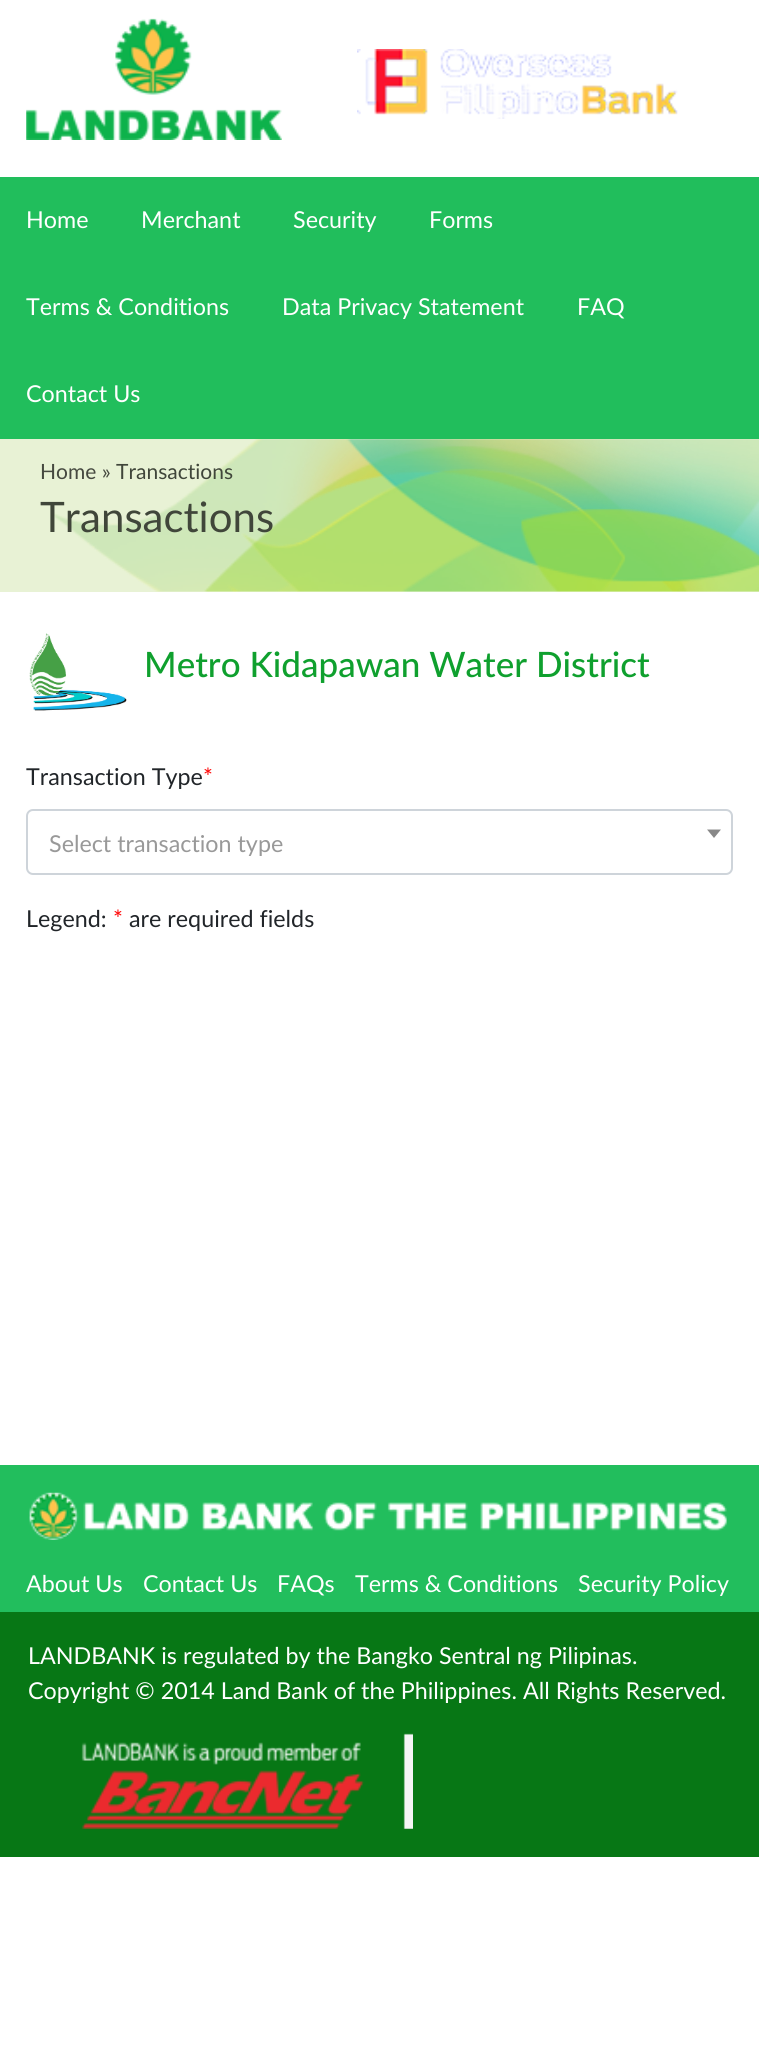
#include <cairo.h>
#include <math.h>
#include <stddef.h>

static cairo_t *ctx;

static void use_color(int r, int g, int b) {
    cairo_set_source_rgb(ctx, r / 255.0, g / 255.0, b / 255.0);
}

static void round_rect(double x, double y, double w, double h, double r) {
    cairo_new_sub_path(ctx);
    cairo_arc(ctx, x + w - r, y + h - r, r, 0, M_PI / 2);
    cairo_arc(ctx, x + r, y + h - r, r, M_PI / 2, M_PI);
    cairo_arc(ctx, x + r, y + r, r, M_PI, 1.5 * M_PI);
    cairo_arc(ctx, x + w - r, y + r, r, 1.5 * M_PI, 2 * M_PI);
    cairo_close_path(ctx);
}

static void picture(const char *path, double x, double y, double w, double h) {
    cairo_surface_t *image = cairo_image_surface_create_from_png(path);
    cairo_save(ctx);
    cairo_set_source_surface(ctx, image, x, y);
    cairo_rectangle(ctx, x, y, w, h);
    cairo_fill(ctx);
    cairo_restore(ctx);
    cairo_surface_destroy(image);
}

int main(void) {
    cairo_surface_t *surface = cairo_image_surface_create(CAIRO_FORMAT_RGB24, 759, 2052);
    ctx = cairo_create(surface);
    cairo_font_options_t *options = cairo_font_options_create();
    cairo_font_options_set_hint_metrics(options, CAIRO_HINT_METRICS_OFF);
    cairo_font_options_set_hint_style(options, CAIRO_HINT_STYLE_NONE);
    cairo_set_font_options(ctx, options);
    cairo_set_miter_limit(ctx, 4);
    use_color(255, 255, 255);
    cairo_paint(ctx);
    picture("img1.png", 26, 18, 256, 122);
    picture("img2.png", 357, 49, 321, 70);
    use_color(33, 190, 92);
    cairo_rectangle(ctx, 0, 177, 759, 262);
    cairo_fill(ctx);
    cairo_select_font_face(ctx, "Lato", CAIRO_FONT_SLANT_NORMAL, CAIRO_FONT_WEIGHT_NORMAL);
    cairo_set_font_size(ctx, 23.3);
    use_color(255, 255, 255);
    cairo_move_to(ctx, 26, 228);
    cairo_show_text(ctx, "Home");
    cairo_move_to(ctx, 141, 228);
    cairo_show_text(ctx, "Merchant");
    cairo_move_to(ctx, 293, 228);
    cairo_show_text(ctx, "Security");
    cairo_move_to(ctx, 429, 228);
    cairo_show_text(ctx, "Forms");
    cairo_move_to(ctx, 26, 315);
    cairo_show_text(ctx, "Terms & Conditions");
    cairo_move_to(ctx, 282, 315);
    cairo_show_text(ctx, "Data Privacy Statement");
    cairo_move_to(ctx, 577, 315);
    cairo_show_text(ctx, "FAQ");
    cairo_move_to(ctx, 26, 402);
    cairo_show_text(ctx, "Contact Us");
    use_color(232, 242, 213);
    cairo_rectangle(ctx, 0, 439, 759, 153);
    cairo_fill(ctx);
    picture("img3.png", 52, 439, 707, 153);
    cairo_set_font_size(ctx, 21);
    use_color(70, 73, 64);
    cairo_move_to(ctx, 40, 479);
    cairo_show_text(ctx, "Home »");
    use_color(64, 70, 58);
    cairo_move_to(ctx, 116, 479);
    cairo_show_text(ctx, "Transactions");
    cairo_set_font_size(ctx, 42);
    cairo_move_to(ctx, 40, 532);
    cairo_show_text(ctx, "Transactions");
    picture("img4.png", 29, 633, 98, 78);
    cairo_select_font_face(ctx, "Lato Medium", CAIRO_FONT_SLANT_NORMAL, CAIRO_FONT_WEIGHT_NORMAL);
    cairo_set_font_size(ctx, 35);
    use_color(15, 160, 46);
    cairo_move_to(ctx, 144, 677);
    cairo_show_text(ctx, "Metro Kidapawan Water District");
    cairo_select_font_face(ctx, "Lato", CAIRO_FONT_SLANT_NORMAL, CAIRO_FONT_WEIGHT_NORMAL);
    cairo_set_font_size(ctx, 23.3);
    use_color(33, 37, 41);
    cairo_move_to(ctx, 26, 785);
    cairo_show_text(ctx, "Transaction Type");
    use_color(255, 0, 0);
    cairo_move_to(ctx, 203, 785);
    cairo_show_text(ctx, "*");
    round_rect(27, 810, 705, 64, 6);
    use_color(206, 212, 218);
    cairo_stroke(ctx);
    use_color(153, 153, 153);
    cairo_move_to(ctx, 49, 852);
    cairo_show_text(ctx, "Select transaction type");
    use_color(136, 136, 136);
    cairo_new_path(ctx);
    cairo_move_to(ctx, 707, 829.5);
    cairo_line_to(ctx, 721, 829.5);
    cairo_line_to(ctx, 714, 838);
    cairo_close_path(ctx);
    cairo_fill(ctx);
    use_color(33, 37, 41);
    cairo_move_to(ctx, 26, 927);
    cairo_show_text(ctx, "Legend:");
    use_color(255, 0, 0);
    cairo_move_to(ctx, 113, 927);
    cairo_show_text(ctx, "*");
    use_color(33, 37, 41);
    cairo_move_to(ctx, 129, 927);
    cairo_show_text(ctx, "are required fields");
    use_color(34, 190, 93);
    cairo_rectangle(ctx, 0, 1465, 759, 147);
    cairo_fill(ctx);
    picture("img5.png", 29, 1492, 698, 48);
    use_color(255, 255, 255);
    cairo_move_to(ctx, 26, 1592);
    cairo_show_text(ctx, "About Us");
    cairo_move_to(ctx, 143, 1592);
    cairo_show_text(ctx, "Contact Us");
    cairo_move_to(ctx, 277, 1592);
    cairo_show_text(ctx, "FAQs");
    cairo_move_to(ctx, 355, 1592);
    cairo_show_text(ctx, "Terms & Conditions");
    cairo_move_to(ctx, 578, 1592);
    cairo_show_text(ctx, "Security Policy");
    use_color(7, 119, 21);
    cairo_rectangle(ctx, 0, 1612, 759, 245);
    cairo_fill(ctx);
    use_color(255, 255, 255);
    cairo_move_to(ctx, 28, 1664);
    cairo_show_text(ctx, "LANDBANK is regulated by the Bangko Sentral ng Pilipinas.");
    cairo_move_to(ctx, 28, 1699);
    cairo_show_text(ctx, "Copyright © 2014 Land Bank of the Philippines. All Rights Reserved.");
    picture("img6.png", 81, 1733, 332, 96);
    cairo_surface_write_to_png(surface, "result.png");
    cairo_font_options_destroy(options);
    cairo_destroy(ctx);
    cairo_surface_destroy(surface);
    return 0;
}
